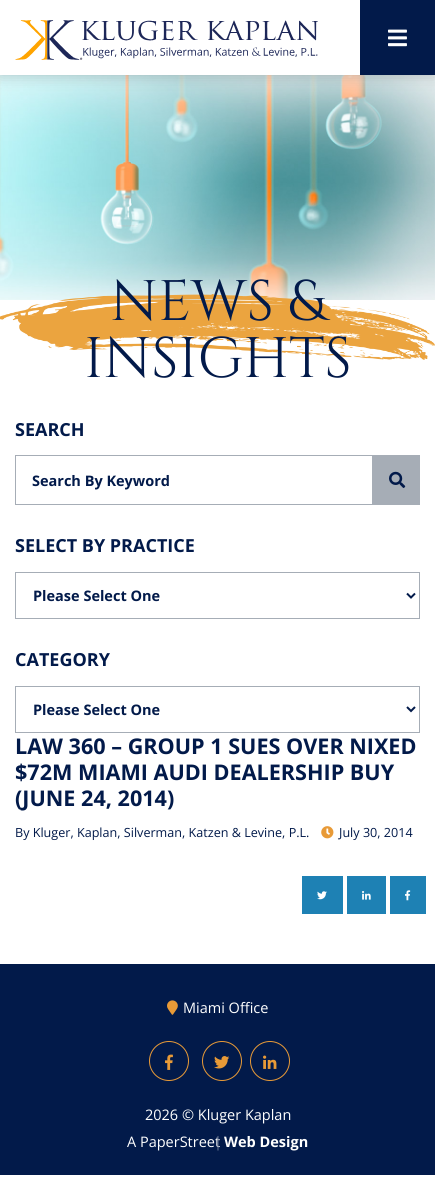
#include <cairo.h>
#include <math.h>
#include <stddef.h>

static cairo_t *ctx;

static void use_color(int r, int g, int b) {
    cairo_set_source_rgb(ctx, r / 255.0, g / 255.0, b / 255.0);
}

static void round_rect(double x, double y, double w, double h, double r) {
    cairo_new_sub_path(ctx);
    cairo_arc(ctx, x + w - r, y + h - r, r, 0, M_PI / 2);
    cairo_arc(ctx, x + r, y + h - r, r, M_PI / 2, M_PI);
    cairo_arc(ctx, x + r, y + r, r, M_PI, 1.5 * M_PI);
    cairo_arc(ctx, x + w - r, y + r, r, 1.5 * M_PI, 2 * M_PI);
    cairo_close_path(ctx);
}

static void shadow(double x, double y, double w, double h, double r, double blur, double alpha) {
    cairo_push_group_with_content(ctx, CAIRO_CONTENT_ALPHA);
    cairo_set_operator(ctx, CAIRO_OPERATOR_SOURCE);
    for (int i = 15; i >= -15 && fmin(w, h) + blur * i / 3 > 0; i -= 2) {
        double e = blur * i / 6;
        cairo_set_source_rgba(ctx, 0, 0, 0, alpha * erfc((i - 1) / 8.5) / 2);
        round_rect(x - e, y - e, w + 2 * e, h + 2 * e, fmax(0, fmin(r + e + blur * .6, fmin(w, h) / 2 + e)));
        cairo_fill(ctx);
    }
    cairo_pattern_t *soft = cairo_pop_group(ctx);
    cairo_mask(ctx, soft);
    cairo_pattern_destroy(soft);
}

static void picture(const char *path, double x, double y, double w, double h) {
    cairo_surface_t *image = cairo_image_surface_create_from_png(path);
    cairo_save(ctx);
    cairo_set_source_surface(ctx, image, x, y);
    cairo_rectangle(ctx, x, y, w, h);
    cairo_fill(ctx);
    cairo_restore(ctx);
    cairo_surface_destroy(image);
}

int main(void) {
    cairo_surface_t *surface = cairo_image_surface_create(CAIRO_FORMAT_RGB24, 435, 1196);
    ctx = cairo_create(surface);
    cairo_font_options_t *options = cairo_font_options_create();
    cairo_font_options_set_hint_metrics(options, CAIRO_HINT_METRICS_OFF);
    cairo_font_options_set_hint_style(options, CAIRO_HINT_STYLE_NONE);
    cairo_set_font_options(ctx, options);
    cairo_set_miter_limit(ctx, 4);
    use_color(255, 255, 255);
    cairo_paint(ctx);
    picture("img3.png", 0, 75, 435, 225);
    use_color(0, 0, 0);
    shadow(0, 0, 435, 75, 0, 7.5, 0.22);
    use_color(255, 255, 255);
    cairo_rectangle(ctx, 0, 0, 360, 75);
    cairo_fill(ctx);
    picture("img1.png", 15, 20, 303, 40);
    use_color(2, 26, 74);
    cairo_rectangle(ctx, 360, 0, 75, 75);
    cairo_fill(ctx);
    picture("img2.png", 388, 29, 19, 18);
    picture("img4.png", 0, 294, 435, 66);
    cairo_select_font_face(ctx, "Cinzel", CAIRO_FONT_SLANT_NORMAL, CAIRO_FONT_WEIGHT_NORMAL);
    cairo_set_font_size(ctx, 57);
    cairo_move_to(ctx, 110, 320);
    cairo_show_text(ctx, "NEWS &");
    cairo_move_to(ctx, 84, 377);
    cairo_show_text(ctx, "INSIGHTS");
    cairo_select_font_face(ctx, "Open Sans", CAIRO_FONT_SLANT_NORMAL, CAIRO_FONT_WEIGHT_BOLD);
    cairo_set_font_size(ctx, 18);
    cairo_move_to(ctx, 15, 436);
    cairo_show_text(ctx, "SEARCH");
    cairo_rectangle(ctx, 15.5, 455.5, 404, 49);
    use_color(166, 173, 182);
    cairo_set_line_width(ctx, 1);
    cairo_stroke(ctx);
    cairo_set_font_size(ctx, 14.5);
    use_color(2, 26, 74);
    cairo_move_to(ctx, 32, 486);
    cairo_show_text(ctx, "Search By Keyword");
    use_color(166, 173, 182);
    cairo_rectangle(ctx, 372, 456, 47, 48);
    cairo_fill(ctx);
    picture("img5.png", 389, 471, 17, 17);
    cairo_set_font_size(ctx, 18);
    use_color(2, 26, 74);
    cairo_move_to(ctx, 15, 552);
    cairo_show_text(ctx, "SELECT BY PRACTICE");
    cairo_rectangle(ctx, 15.5, 572.5, 404, 46);
    use_color(166, 173, 182);
    cairo_stroke(ctx);
    cairo_new_path(ctx);
    cairo_move_to(ctx, 407, 593.5);
    cairo_line_to(ctx, 411, 597.5);
    cairo_line_to(ctx, 415, 593.5);
    use_color(2, 26, 74);
    cairo_set_line_width(ctx, 2);
    cairo_stroke(ctx);
    cairo_set_font_size(ctx, 14.5);
    cairo_move_to(ctx, 33, 601);
    cairo_show_text(ctx, "Please Select One");
    cairo_set_font_size(ctx, 18);
    cairo_move_to(ctx, 15, 666);
    cairo_show_text(ctx, "CATEGORY");
    cairo_rectangle(ctx, 15.5, 686.5, 404, 46);
    use_color(166, 173, 182);
    cairo_set_line_width(ctx, 1);
    cairo_stroke(ctx);
    cairo_new_path(ctx);
    cairo_move_to(ctx, 407, 707);
    cairo_line_to(ctx, 411, 711);
    cairo_line_to(ctx, 415, 707);
    use_color(2, 26, 74);
    cairo_set_line_width(ctx, 2);
    cairo_stroke(ctx);
    cairo_set_font_size(ctx, 14.5);
    cairo_move_to(ctx, 33, 715);
    cairo_show_text(ctx, "Please Select One");
    cairo_set_font_size(ctx, 21.6);
    cairo_move_to(ctx, 15, 754);
    cairo_show_text(ctx, "LAW 360 – GROUP 1 SUES OVER NIXED");
    cairo_move_to(ctx, 15, 780);
    cairo_show_text(ctx, "$72M MIAMI AUDI DEALERSHIP BUY");
    cairo_move_to(ctx, 15, 806);
    cairo_show_text(ctx, "(JUNE 24, 2014)");
    cairo_select_font_face(ctx, "Open Sans", CAIRO_FONT_SLANT_NORMAL, CAIRO_FONT_WEIGHT_NORMAL);
    cairo_set_font_size(ctx, 12.6);
    cairo_move_to(ctx, 15, 837);
    cairo_show_text(ctx, "By Kluger, Kaplan, Silverman, Katzen & Levine, P.L.");
    picture("img6.png", 321, 826, 13, 13);
    cairo_move_to(ctx, 339, 837);
    cairo_show_text(ctx, "July 30, 2014");
    use_color(30, 129, 180);
    cairo_rectangle(ctx, 302, 876, 41, 38);
    cairo_fill(ctx);
    picture("img7.png", 317, 891, 10, 9);
    cairo_rectangle(ctx, 347, 876, 39, 38);
    cairo_fill(ctx);
    picture("img8.png", 362, 891, 9, 9);
    cairo_rectangle(ctx, 390, 876, 36, 38);
    cairo_fill(ctx);
    picture("img9.png", 405, 890, 6, 11);
    use_color(2, 26, 74);
    cairo_rectangle(ctx, 0, 964, 435, 211);
    cairo_fill(ctx);
    picture("img10.png", 167, 1000, 11, 15);
    cairo_set_font_size(ctx, 14.5);
    use_color(255, 255, 255);
    cairo_move_to(ctx, 183, 1013);
    cairo_show_text(ctx, "Miami Office");
    cairo_new_path(ctx);
    cairo_arc(ctx, 169, 1061, 19.5, 0, 2 * M_PI);
    use_color(232, 154, 55);
    cairo_set_line_width(ctx, 1);
    cairo_stroke(ctx);
    picture("img11.png", 165, 1054, 8, 16);
    cairo_arc(ctx, 222, 1061, 19.5, 0, 2 * M_PI);
    cairo_stroke(ctx);
    picture("img12.png", 214, 1056, 16, 13);
    cairo_arc(ctx, 270, 1061, 19.5, 0, 2 * M_PI);
    cairo_stroke(ctx);
    picture("img13.png", 263, 1055, 14, 14);
    use_color(255, 255, 255);
    cairo_move_to(ctx, 145, 1120);
    cairo_show_text(ctx, "2026 © Kluger Kaplan");
    cairo_move_to(ctx, 127, 1147);
    cairo_show_text(ctx, "A PaperStreet");
    use_color(104, 118, 147);
    cairo_move_to(ctx, 214, 1147);
    cairo_show_text(ctx, "|");
    cairo_select_font_face(ctx, "Open Sans", CAIRO_FONT_SLANT_NORMAL, CAIRO_FONT_WEIGHT_BOLD);
    use_color(255, 255, 255);
    cairo_move_to(ctx, 224, 1147);
    cairo_show_text(ctx, "Web Design");
    cairo_surface_write_to_png(surface, "result.png");
    cairo_font_options_destroy(options);
    cairo_destroy(ctx);
    cairo_surface_destroy(surface);
    return 0;
}
